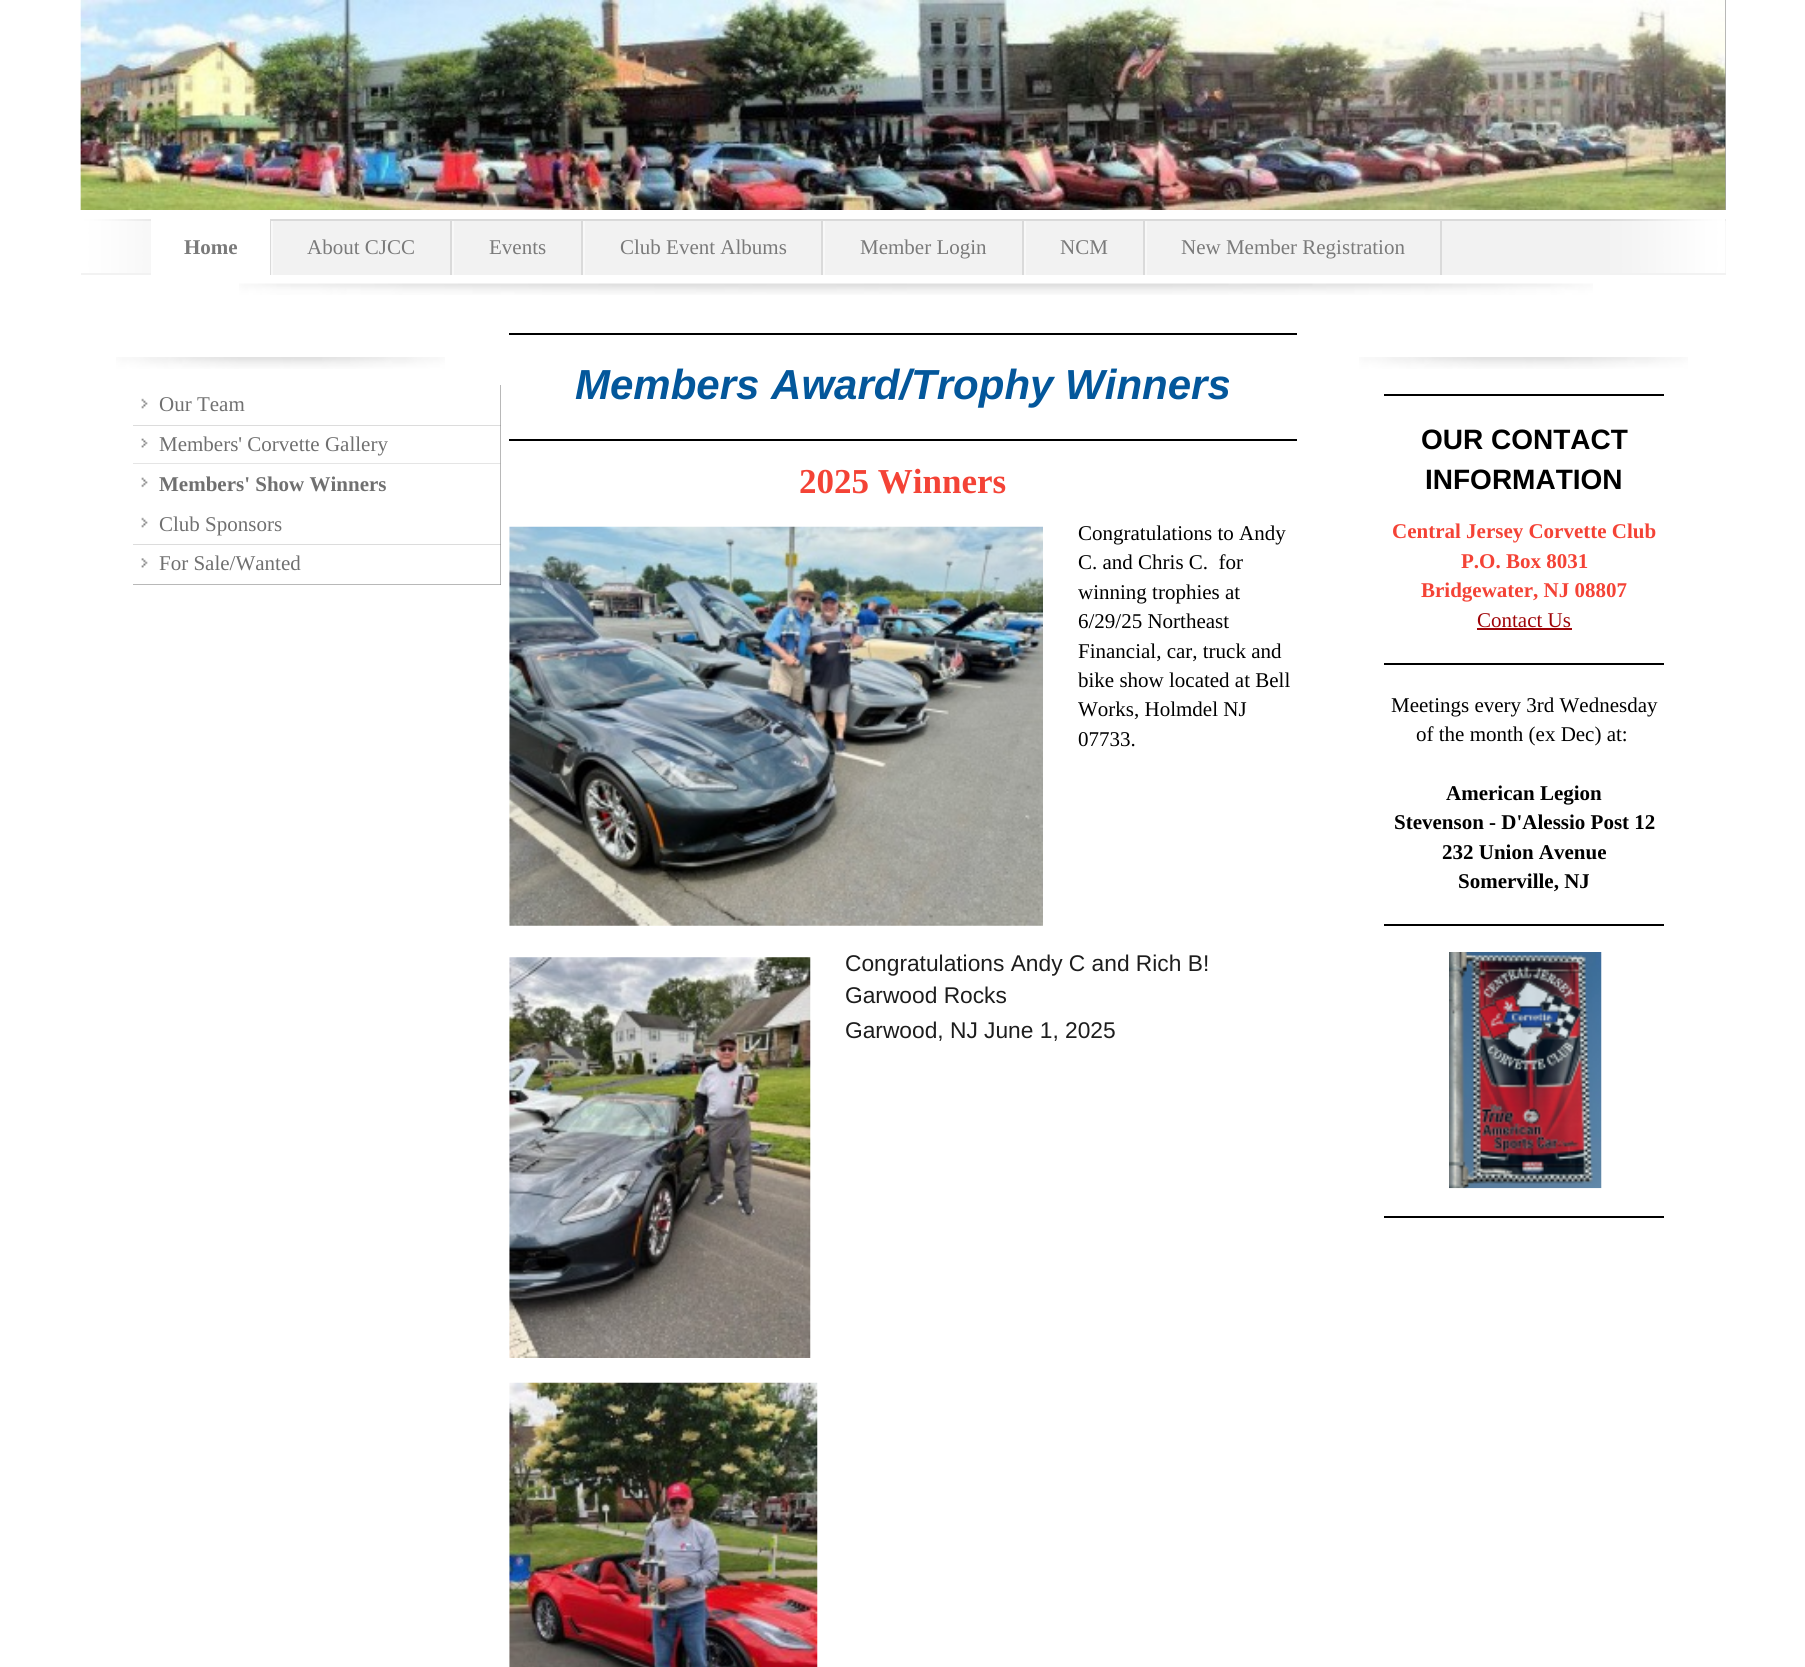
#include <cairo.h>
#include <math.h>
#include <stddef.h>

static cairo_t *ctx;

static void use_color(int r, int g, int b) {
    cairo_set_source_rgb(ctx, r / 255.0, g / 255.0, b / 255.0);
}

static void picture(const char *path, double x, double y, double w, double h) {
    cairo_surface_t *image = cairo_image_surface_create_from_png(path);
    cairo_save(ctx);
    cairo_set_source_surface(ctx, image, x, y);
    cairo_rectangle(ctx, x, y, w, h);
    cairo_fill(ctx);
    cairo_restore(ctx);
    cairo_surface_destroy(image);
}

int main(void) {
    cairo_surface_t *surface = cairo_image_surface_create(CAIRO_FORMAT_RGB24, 1805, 1667);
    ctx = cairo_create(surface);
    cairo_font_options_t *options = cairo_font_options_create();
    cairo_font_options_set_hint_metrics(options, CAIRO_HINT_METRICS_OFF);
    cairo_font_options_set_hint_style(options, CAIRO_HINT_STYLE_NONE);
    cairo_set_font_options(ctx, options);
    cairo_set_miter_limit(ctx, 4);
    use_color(255, 255, 255);
    cairo_paint(ctx);
    picture("img1.png", 80, 0, 1, 210);
    use_color(160, 160, 160);
    cairo_rectangle(ctx, 1725, 0, 1, 210);
    cairo_fill(ctx);
    picture("img3.png", 80, 0, 1, 210);
    picture("img2.png", 80, 0, 1646, 210);
    use_color(242, 242, 242);
    cairo_rectangle(ctx, 81, 221, 1645, 54);
    cairo_fill(ctx);
    use_color(218, 218, 218);
    cairo_rectangle(ctx, 81, 219, 1645, 2);
    cairo_fill(ctx);
    picture("img4.png", 81, 219, 1645, 54);
    use_color(255, 255, 255);
    cairo_rectangle(ctx, 151, 219, 119, 56);
    cairo_fill(ctx);
    use_color(218, 218, 218);
    cairo_rectangle(ctx, 270, 219, 2, 56);
    cairo_fill(ctx);
    cairo_select_font_face(ctx, "Liberation Serif", CAIRO_FONT_SLANT_NORMAL, CAIRO_FONT_WEIGHT_BOLD);
    cairo_set_font_size(ctx, 21);
    use_color(122, 122, 122);
    cairo_move_to(ctx, 184, 254);
    cairo_show_text(ctx, "Home");
    use_color(218, 218, 218);
    cairo_rectangle(ctx, 450, 221, 2, 54);
    cairo_fill(ctx);
    use_color(248, 248, 248);
    cairo_rectangle(ctx, 271, 221, 2, 54);
    cairo_fill(ctx);
    cairo_select_font_face(ctx, "Liberation Serif", CAIRO_FONT_SLANT_NORMAL, CAIRO_FONT_WEIGHT_NORMAL);
    use_color(122, 122, 122);
    cairo_move_to(ctx, 307, 254);
    cairo_show_text(ctx, "About CJCC");
    use_color(218, 218, 218);
    cairo_rectangle(ctx, 581, 221, 2, 54);
    cairo_fill(ctx);
    use_color(248, 248, 248);
    cairo_rectangle(ctx, 452, 221, 2, 54);
    cairo_fill(ctx);
    use_color(122, 122, 122);
    cairo_move_to(ctx, 489, 254);
    cairo_show_text(ctx, "Events");
    use_color(218, 218, 218);
    cairo_rectangle(ctx, 821, 221, 2, 54);
    cairo_fill(ctx);
    use_color(248, 248, 248);
    cairo_rectangle(ctx, 583, 221, 2, 54);
    cairo_fill(ctx);
    use_color(122, 122, 122);
    cairo_move_to(ctx, 620, 254);
    cairo_show_text(ctx, "Club Event Albums");
    use_color(218, 218, 218);
    cairo_rectangle(ctx, 1022, 221, 2, 54);
    cairo_fill(ctx);
    use_color(248, 248, 248);
    cairo_rectangle(ctx, 823, 221, 2, 54);
    cairo_fill(ctx);
    use_color(122, 122, 122);
    cairo_move_to(ctx, 860, 254);
    cairo_show_text(ctx, "Member Login");
    use_color(218, 218, 218);
    cairo_rectangle(ctx, 1143, 221, 2, 54);
    cairo_fill(ctx);
    use_color(248, 248, 248);
    cairo_rectangle(ctx, 1024, 221, 2, 54);
    cairo_fill(ctx);
    use_color(122, 122, 122);
    cairo_move_to(ctx, 1060, 254);
    cairo_show_text(ctx, "NCM");
    use_color(218, 218, 218);
    cairo_rectangle(ctx, 1440, 221, 2, 54);
    cairo_fill(ctx);
    use_color(248, 248, 248);
    cairo_rectangle(ctx, 1145, 221, 2, 54);
    cairo_fill(ctx);
    use_color(122, 122, 122);
    cairo_move_to(ctx, 1181, 254);
    cairo_show_text(ctx, "New Member Registration");
    picture("img5.png", 239, 283, 1354, 12);
    picture("img6.png", 116, 357, 329, 12);
    use_color(112, 112, 112);
    cairo_rectangle(ctx, 141, 385, 360, 40);
    cairo_fill(ctx);
    picture("img7.png", 133, 385, 368, 40);
    cairo_move_to(ctx, 159, 411);
    cairo_show_text(ctx, "Our Team");
    cairo_rectangle(ctx, 133, 425, 368, 39);
    cairo_fill(ctx);
    picture("img8.png", 133, 425, 368, 39);
    cairo_move_to(ctx, 159, 451);
    cairo_show_text(ctx, "Members' Corvette Gallery");
    cairo_rectangle(ctx, 141, 464, 360, 80);
    cairo_fill(ctx);
    picture("img9.png", 133, 463, 368, 41);
    cairo_select_font_face(ctx, "Liberation Serif", CAIRO_FONT_SLANT_NORMAL, CAIRO_FONT_WEIGHT_BOLD);
    cairo_move_to(ctx, 159, 491);
    cairo_show_text(ctx, "Members' Show Winners");
    picture("img7.png", 133, 504, 368, 40);
    cairo_select_font_face(ctx, "Liberation Serif", CAIRO_FONT_SLANT_NORMAL, CAIRO_FONT_WEIGHT_NORMAL);
    cairo_move_to(ctx, 159, 531);
    cairo_show_text(ctx, "Club Sponsors");
    cairo_rectangle(ctx, 133, 544, 368, 41);
    cairo_fill(ctx);
    picture("img10.png", 133, 544, 368, 41);
    cairo_move_to(ctx, 159, 570);
    cairo_show_text(ctx, "For Sale/Wanted");
    use_color(0, 0, 0);
    cairo_rectangle(ctx, 509, 333, 788, 2);
    cairo_fill(ctx);
    cairo_select_font_face(ctx, "Liberation Sans", CAIRO_FONT_SLANT_ITALIC, CAIRO_FONT_WEIGHT_BOLD);
    cairo_set_font_size(ctx, 42);
    use_color(3, 87, 155);
    cairo_move_to(ctx, 575, 399);
    cairo_show_text(ctx, "Members Award/Trophy Winners");
    use_color(0, 0, 0);
    cairo_rectangle(ctx, 509, 439, 788, 2);
    cairo_fill(ctx);
    cairo_select_font_face(ctx, "Liberation Serif", CAIRO_FONT_SLANT_NORMAL, CAIRO_FONT_WEIGHT_BOLD);
    cairo_set_font_size(ctx, 35);
    use_color(244, 67, 54);
    cairo_move_to(ctx, 799, 493);
    cairo_show_text(ctx, "2025 Winners");
    picture("img11.png", 509, 526, 534, 400);
    cairo_select_font_face(ctx, "Liberation Serif", CAIRO_FONT_SLANT_NORMAL, CAIRO_FONT_WEIGHT_NORMAL);
    cairo_set_font_size(ctx, 21);
    use_color(0, 0, 0);
    cairo_move_to(ctx, 1078, 540);
    cairo_show_text(ctx, "Congratulations to Andy");
    cairo_move_to(ctx, 1078, 569);
    cairo_show_text(ctx, "C. and Chris C.  for");
    cairo_move_to(ctx, 1078, 599);
    cairo_show_text(ctx, "winning trophies at");
    cairo_move_to(ctx, 1078, 628);
    cairo_show_text(ctx, "6/29/25 Northeast");
    cairo_move_to(ctx, 1078, 658);
    cairo_show_text(ctx, "Financial, car, truck and");
    cairo_move_to(ctx, 1078, 687);
    cairo_show_text(ctx, "bike show located at Bell");
    cairo_move_to(ctx, 1078, 716);
    cairo_show_text(ctx, "Works, Holmdel NJ");
    cairo_move_to(ctx, 1078, 746);
    cairo_show_text(ctx, "07733.");
    picture("img12.png", 509, 957, 302, 401);
    cairo_select_font_face(ctx, "Liberation Sans", CAIRO_FONT_SLANT_NORMAL, CAIRO_FONT_WEIGHT_NORMAL);
    cairo_set_font_size(ctx, 22.75);
    use_color(29, 29, 29);
    cairo_move_to(ctx, 845, 971);
    cairo_show_text(ctx, "Congratulations Andy C and Rich B!");
    cairo_move_to(ctx, 845, 1003);
    cairo_show_text(ctx, "Garwood Rocks");
    cairo_move_to(ctx, 845, 1038);
    cairo_show_text(ctx, "Garwood, NJ June 1, 2025");
    picture("img13.png", 509, 1382, 309, 285);
    picture("img14.png", 1359, 357, 329, 12);
    use_color(0, 0, 0);
    cairo_rectangle(ctx, 1384, 394, 280, 2);
    cairo_fill(ctx);
    cairo_select_font_face(ctx, "Liberation Sans", CAIRO_FONT_SLANT_NORMAL, CAIRO_FONT_WEIGHT_BOLD);
    cairo_set_font_size(ctx, 28);
    cairo_move_to(ctx, 1421, 449);
    cairo_show_text(ctx, "OUR CONTACT");
    cairo_move_to(ctx, 1425, 489);
    cairo_show_text(ctx, "INFORMATION");
    cairo_select_font_face(ctx, "Liberation Serif", CAIRO_FONT_SLANT_NORMAL, CAIRO_FONT_WEIGHT_BOLD);
    cairo_set_font_size(ctx, 21);
    use_color(244, 67, 54);
    cairo_move_to(ctx, 1392, 538);
    cairo_show_text(ctx, "Central Jersey Corvette Club");
    cairo_move_to(ctx, 1461, 568);
    cairo_show_text(ctx, "P.O. Box 8031");
    cairo_move_to(ctx, 1421, 597);
    cairo_show_text(ctx, "Bridgewater, NJ 08807");
    cairo_select_font_face(ctx, "Liberation Serif", CAIRO_FONT_SLANT_NORMAL, CAIRO_FONT_WEIGHT_NORMAL);
    use_color(159, 4, 8);
    cairo_move_to(ctx, 1477, 627);
    cairo_show_text(ctx, "Contact Us");
    cairo_rectangle(ctx, 1477, 628, 95, 2);
    cairo_fill(ctx);
    use_color(0, 0, 0);
    cairo_rectangle(ctx, 1384, 663, 280, 2);
    cairo_fill(ctx);
    cairo_move_to(ctx, 1391, 712);
    cairo_show_text(ctx, "Meetings every 3rd Wednesday");
    cairo_move_to(ctx, 1416, 741);
    cairo_show_text(ctx, "of the month (ex Dec) at:");
    cairo_select_font_face(ctx, "Liberation Serif", CAIRO_FONT_SLANT_NORMAL, CAIRO_FONT_WEIGHT_BOLD);
    cairo_move_to(ctx, 1446, 800);
    cairo_show_text(ctx, "American Legion");
    cairo_move_to(ctx, 1394, 829);
    cairo_show_text(ctx, "Stevenson - D'Alessio Post 12");
    cairo_move_to(ctx, 1442, 859);
    cairo_show_text(ctx, "232 Union Avenue");
    cairo_move_to(ctx, 1458, 888);
    cairo_show_text(ctx, "Somerville, NJ");
    cairo_rectangle(ctx, 1384, 924, 280, 2);
    cairo_fill(ctx);
    picture("img15.png", 1449, 952, 153, 237);
    cairo_rectangle(ctx, 1384, 1216, 280, 2);
    cairo_fill(ctx);
    cairo_surface_write_to_png(surface, "result.png");
    cairo_font_options_destroy(options);
    cairo_destroy(ctx);
    cairo_surface_destroy(surface);
    return 0;
}
